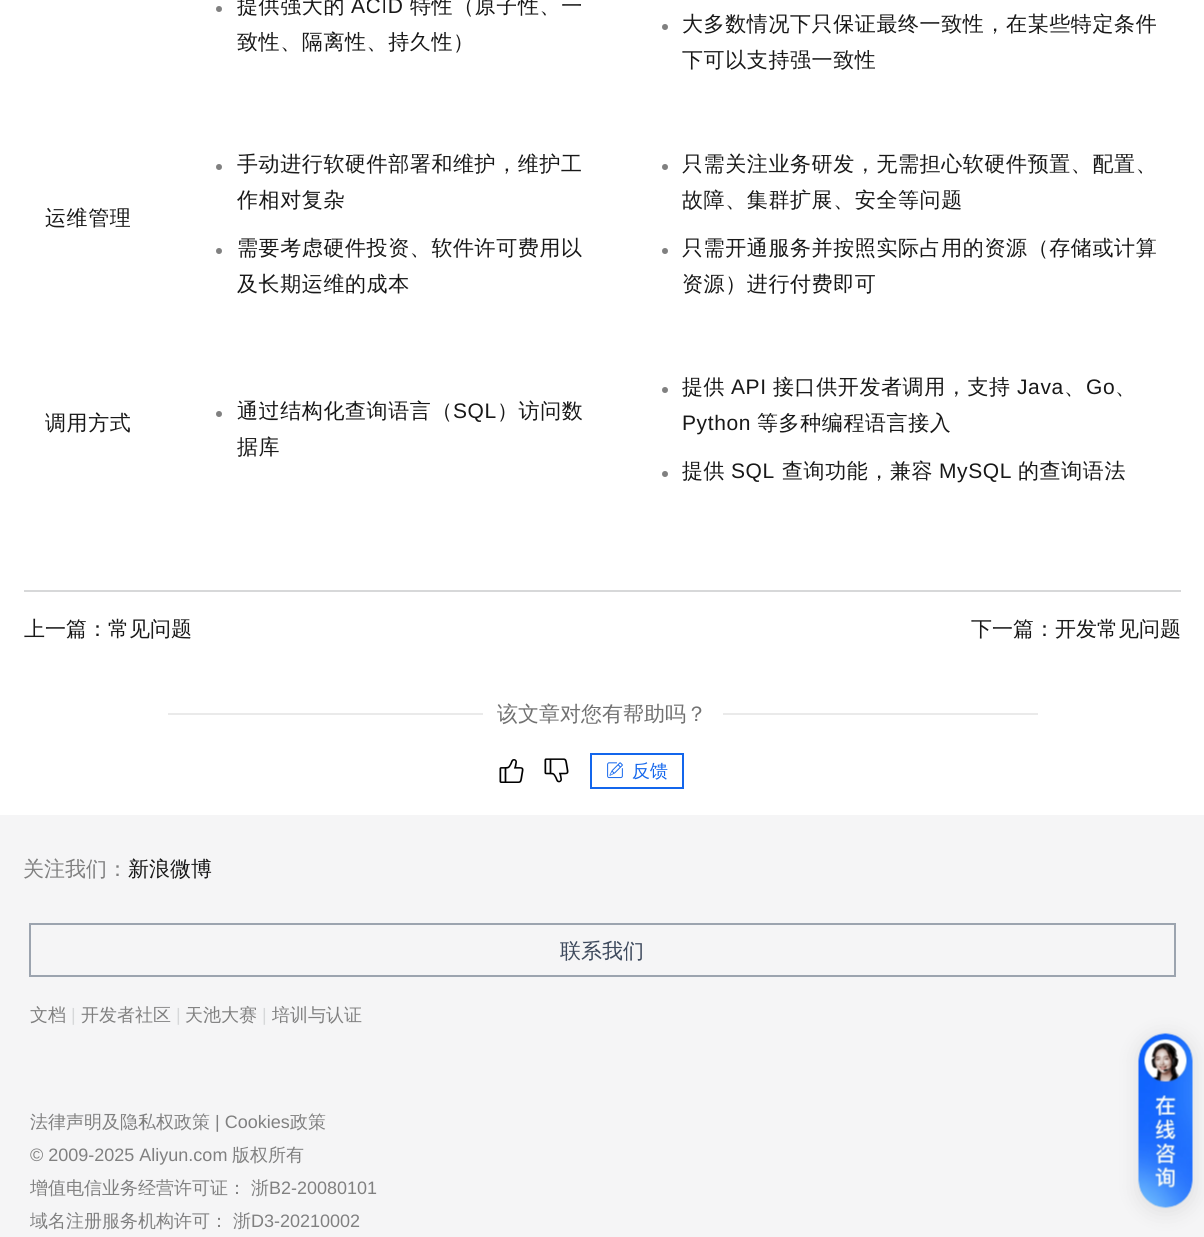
#include <cairo.h>
#include <math.h>
#include <stddef.h>

static cairo_t *ctx;

static void use_color(int r, int g, int b) {
    cairo_set_source_rgb(ctx, r / 255.0, g / 255.0, b / 255.0);
}

static void spaced_text(double x, double y, const char *s, double letter, double word) {
    cairo_move_to(ctx, x, y);
    while (*s) {
        char ch[5] = {0};
        int n = 0;
        do ch[n++] = *s++; while ((*s & 0xC0) == 0x80);
        cairo_show_text(ctx, ch);
        cairo_rel_move_to(ctx, letter + word * (*ch == ' '), 0);
    }
}

static void round_rect(double x, double y, double w, double h, double r) {
    cairo_new_sub_path(ctx);
    cairo_arc(ctx, x + w - r, y + h - r, r, 0, M_PI / 2);
    cairo_arc(ctx, x + r, y + h - r, r, M_PI / 2, M_PI);
    cairo_arc(ctx, x + r, y + r, r, M_PI, 1.5 * M_PI);
    cairo_arc(ctx, x + w - r, y + r, r, 1.5 * M_PI, 2 * M_PI);
    cairo_close_path(ctx);
}

static void shadow(double x, double y, double w, double h, double r, double blur, double alpha) {
    cairo_push_group_with_content(ctx, CAIRO_CONTENT_ALPHA);
    cairo_set_operator(ctx, CAIRO_OPERATOR_SOURCE);
    for (int i = 15; i >= -15 && fmin(w, h) + blur * i / 3 > 0; i -= 2) {
        double e = blur * i / 6;
        cairo_set_source_rgba(ctx, 0, 0, 0, alpha * erfc((i - 1) / 8.5) / 2);
        round_rect(x - e, y - e, w + 2 * e, h + 2 * e, fmax(0, fmin(r + e + blur * .6, fmin(w, h) / 2 + e)));
        cairo_fill(ctx);
    }
    cairo_pattern_t *soft = cairo_pop_group(ctx);
    cairo_mask(ctx, soft);
    cairo_pattern_destroy(soft);
}

static void picture(const char *path, double x, double y, double w, double h) {
    cairo_surface_t *image = cairo_image_surface_create_from_png(path);
    cairo_save(ctx);
    cairo_set_source_surface(ctx, image, x, y);
    cairo_rectangle(ctx, x, y, w, h);
    cairo_fill(ctx);
    cairo_restore(ctx);
    cairo_surface_destroy(image);
}

int main(void) {
    cairo_surface_t *surface = cairo_image_surface_create(CAIRO_FORMAT_RGB24, 1204, 1237);
    ctx = cairo_create(surface);
    cairo_font_options_t *options = cairo_font_options_create();
    cairo_font_options_set_hint_metrics(options, CAIRO_HINT_METRICS_OFF);
    cairo_font_options_set_hint_style(options, CAIRO_HINT_STYLE_NONE);
    cairo_set_font_options(ctx, options);
    cairo_set_miter_limit(ctx, 4);
    use_color(255, 255, 255);
    cairo_paint(ctx);
    use_color(128, 128, 128);
    cairo_arc(ctx, 219, 9, 3, 0, 2 * M_PI);
    cairo_fill(ctx);
    cairo_select_font_face(ctx, "WenQuanYi Zen Hei Medium", CAIRO_FONT_SLANT_NORMAL, CAIRO_FONT_WEIGHT_NORMAL);
    cairo_set_font_size(ctx, 21);
    use_color(24, 24, 24);
    spaced_text(237, 13, "提供强大的", 0.6, 0);
    cairo_select_font_face(ctx, "Liberation Sans", CAIRO_FONT_SLANT_NORMAL, CAIRO_FONT_WEIGHT_NORMAL);
    spaced_text(351, 13, "ACID", 0.6, 0);
    cairo_select_font_face(ctx, "WenQuanYi Zen Hei Medium", CAIRO_FONT_SLANT_NORMAL, CAIRO_FONT_WEIGHT_NORMAL);
    spaced_text(410, 13, "特性（原子性、一", 0.6, 0);
    spaced_text(237, 49, "致性、隔离性、持久性）", 0.6, 0);
    use_color(128, 128, 128);
    cairo_new_path(ctx);
    cairo_arc(ctx, 665, 27, 3, 0, 2 * M_PI);
    cairo_fill(ctx);
    use_color(24, 24, 24);
    spaced_text(682, 31, "大多数情况下只保证最终一致性，在某些特定条件", 0.6, 0);
    spaced_text(682, 67, "下可以支持强一致性", 0.6, 0);
    spaced_text(45, 225, "运维管理", 0.6, 0);
    use_color(128, 128, 128);
    cairo_new_path(ctx);
    cairo_arc(ctx, 219, 167, 3, 0, 2 * M_PI);
    cairo_fill(ctx);
    use_color(24, 24, 24);
    spaced_text(237, 171, "手动进行软硬件部署和维护，维护工", 0.6, 0);
    spaced_text(237, 207, "作相对复杂", 0.6, 0);
    use_color(128, 128, 128);
    cairo_new_path(ctx);
    cairo_arc(ctx, 219, 251, 3, 0, 2 * M_PI);
    cairo_fill(ctx);
    use_color(24, 24, 24);
    spaced_text(237, 255, "需要考虑硬件投资、软件许可费用以", 0.6, 0);
    spaced_text(237, 291, "及长期运维的成本", 0.6, 0);
    use_color(128, 128, 128);
    cairo_new_path(ctx);
    cairo_arc(ctx, 665, 167, 3, 0, 2 * M_PI);
    cairo_fill(ctx);
    use_color(24, 24, 24);
    spaced_text(682, 171, "只需关注业务研发，无需担心软硬件预置、配置、", 0.6, 0);
    spaced_text(682, 207, "故障、集群扩展、安全等问题", 0.6, 0);
    use_color(128, 128, 128);
    cairo_new_path(ctx);
    cairo_arc(ctx, 665, 251, 3, 0, 2 * M_PI);
    cairo_fill(ctx);
    use_color(24, 24, 24);
    spaced_text(682, 255, "只需开通服务并按照实际占用的资源（存储或计算", 0.6, 0);
    spaced_text(682, 291, "资源）进行付费即可", 0.6, 0);
    spaced_text(45, 430, "调用方式", 0.6, 0);
    use_color(128, 128, 128);
    cairo_new_path(ctx);
    cairo_arc(ctx, 219, 414, 3, 0, 2 * M_PI);
    cairo_fill(ctx);
    use_color(24, 24, 24);
    spaced_text(237, 418, "通过结构化查询语言（", 0.6, 0);
    cairo_select_font_face(ctx, "Liberation Sans", CAIRO_FONT_SLANT_NORMAL, CAIRO_FONT_WEIGHT_NORMAL);
    spaced_text(453, 418, "SQL", 0.6, 0);
    cairo_select_font_face(ctx, "WenQuanYi Zen Hei Medium", CAIRO_FONT_SLANT_NORMAL, CAIRO_FONT_WEIGHT_NORMAL);
    spaced_text(497, 418, "）访问数", 0.6, 0);
    spaced_text(237, 454, "据库", 0.6, 0);
    use_color(128, 128, 128);
    cairo_new_path(ctx);
    cairo_arc(ctx, 665, 390, 3, 0, 2 * M_PI);
    cairo_fill(ctx);
    use_color(24, 24, 24);
    spaced_text(682, 394, "提供", 0.6, 0);
    cairo_select_font_face(ctx, "Liberation Sans", CAIRO_FONT_SLANT_NORMAL, CAIRO_FONT_WEIGHT_NORMAL);
    spaced_text(731, 394, "API", 0.6, 0);
    cairo_select_font_face(ctx, "WenQuanYi Zen Hei Medium", CAIRO_FONT_SLANT_NORMAL, CAIRO_FONT_WEIGHT_NORMAL);
    spaced_text(773, 394, "接口供开发者调用，支持", 0.6, 0);
    cairo_select_font_face(ctx, "Liberation Sans", CAIRO_FONT_SLANT_NORMAL, CAIRO_FONT_WEIGHT_NORMAL);
    spaced_text(1017, 394, "Java", 0.6, 0);
    cairo_select_font_face(ctx, "WenQuanYi Zen Hei Medium", CAIRO_FONT_SLANT_NORMAL, CAIRO_FONT_WEIGHT_NORMAL);
    spaced_text(1064, 394, "、", 0.6, 0);
    cairo_select_font_face(ctx, "Liberation Sans", CAIRO_FONT_SLANT_NORMAL, CAIRO_FONT_WEIGHT_NORMAL);
    spaced_text(1086, 394, "Go", 0.6, 0);
    cairo_select_font_face(ctx, "WenQuanYi Zen Hei Medium", CAIRO_FONT_SLANT_NORMAL, CAIRO_FONT_WEIGHT_NORMAL);
    spaced_text(1115, 394, "、", 0.6, 0);
    cairo_select_font_face(ctx, "Liberation Sans", CAIRO_FONT_SLANT_NORMAL, CAIRO_FONT_WEIGHT_NORMAL);
    spaced_text(682, 430, "Python", 0.6, 0);
    cairo_select_font_face(ctx, "WenQuanYi Zen Hei Medium", CAIRO_FONT_SLANT_NORMAL, CAIRO_FONT_WEIGHT_NORMAL);
    spaced_text(757, 430, "等多种编程语言接入", 0.6, 0);
    use_color(128, 128, 128);
    cairo_new_path(ctx);
    cairo_arc(ctx, 665, 474, 3, 0, 2 * M_PI);
    cairo_fill(ctx);
    use_color(24, 24, 24);
    spaced_text(682, 478, "提供", 0.6, 0);
    cairo_select_font_face(ctx, "Liberation Sans", CAIRO_FONT_SLANT_NORMAL, CAIRO_FONT_WEIGHT_NORMAL);
    spaced_text(731, 478, "SQL", 0.6, 0);
    cairo_select_font_face(ctx, "WenQuanYi Zen Hei Medium", CAIRO_FONT_SLANT_NORMAL, CAIRO_FONT_WEIGHT_NORMAL);
    spaced_text(782, 478, "查询功能，兼容", 0.6, 0);
    cairo_select_font_face(ctx, "Liberation Sans", CAIRO_FONT_SLANT_NORMAL, CAIRO_FONT_WEIGHT_NORMAL);
    spaced_text(939, 478, "MySQL", 0.6, 0);
    cairo_select_font_face(ctx, "WenQuanYi Zen Hei Medium", CAIRO_FONT_SLANT_NORMAL, CAIRO_FONT_WEIGHT_NORMAL);
    spaced_text(1018, 478, "的查询语法", 0.6, 0);
    use_color(215, 216, 217);
    cairo_rectangle(ctx, 24, 590, 1157, 2);
    cairo_fill(ctx);
    use_color(24, 24, 24);
    cairo_move_to(ctx, 24, 636);
    cairo_show_text(ctx, "上一篇：常见问题");
    cairo_move_to(ctx, 971, 636);
    cairo_show_text(ctx, "下一篇：开发常见问题");
    use_color(234, 234, 234);
    cairo_rectangle(ctx, 168, 713, 315, 2);
    cairo_fill(ctx);
    use_color(113, 113, 113);
    cairo_move_to(ctx, 497, 721);
    cairo_show_text(ctx, "该文章对您有帮助吗？");
    use_color(234, 234, 234);
    cairo_rectangle(ctx, 723, 713, 315, 2);
    cairo_fill(ctx);
    picture("img1.png", 499, 759, 25, 24);
    picture("img2.png", 544, 758, 25, 25);
    cairo_rectangle(ctx, 591, 754, 92, 34);
    use_color(19, 102, 236);
    cairo_stroke(ctx);
    picture("img3.png", 607, 762, 16, 17);
    cairo_set_font_size(ctx, 18);
    cairo_move_to(ctx, 632, 777);
    cairo_show_text(ctx, "反馈");
    use_color(245, 245, 246);
    cairo_rectangle(ctx, 0, 815, 1204, 422);
    cairo_fill(ctx);
    cairo_set_font_size(ctx, 21);
    use_color(128, 128, 128);
    cairo_move_to(ctx, 23, 876);
    cairo_show_text(ctx, "关注我们：");
    use_color(24, 24, 24);
    cairo_move_to(ctx, 128, 876);
    cairo_show_text(ctx, "新浪微博");
    cairo_rectangle(ctx, 30, 924, 1145, 52);
    use_color(156, 164, 175);
    cairo_stroke(ctx);
    use_color(61, 73, 92);
    cairo_move_to(ctx, 560, 958);
    cairo_show_text(ctx, "联系我们");
    cairo_set_font_size(ctx, 18);
    use_color(128, 128, 128);
    cairo_move_to(ctx, 30, 1021);
    cairo_show_text(ctx, "文档");
    cairo_select_font_face(ctx, "Liberation Sans", CAIRO_FONT_SLANT_NORMAL, CAIRO_FONT_WEIGHT_NORMAL);
    use_color(215, 216, 217);
    cairo_move_to(ctx, 71, 1021);
    cairo_show_text(ctx, "|");
    cairo_select_font_face(ctx, "WenQuanYi Zen Hei Medium", CAIRO_FONT_SLANT_NORMAL, CAIRO_FONT_WEIGHT_NORMAL);
    use_color(128, 128, 128);
    cairo_move_to(ctx, 81, 1021);
    cairo_show_text(ctx, "开发者社区");
    cairo_select_font_face(ctx, "Liberation Sans", CAIRO_FONT_SLANT_NORMAL, CAIRO_FONT_WEIGHT_NORMAL);
    use_color(215, 216, 217);
    cairo_move_to(ctx, 176, 1021);
    cairo_show_text(ctx, "|");
    cairo_select_font_face(ctx, "WenQuanYi Zen Hei Medium", CAIRO_FONT_SLANT_NORMAL, CAIRO_FONT_WEIGHT_NORMAL);
    use_color(128, 128, 128);
    cairo_move_to(ctx, 185, 1021);
    cairo_show_text(ctx, "天池大赛");
    cairo_select_font_face(ctx, "Liberation Sans", CAIRO_FONT_SLANT_NORMAL, CAIRO_FONT_WEIGHT_NORMAL);
    use_color(215, 216, 217);
    cairo_move_to(ctx, 262, 1021);
    cairo_show_text(ctx, "|");
    cairo_select_font_face(ctx, "WenQuanYi Zen Hei Medium", CAIRO_FONT_SLANT_NORMAL, CAIRO_FONT_WEIGHT_NORMAL);
    use_color(128, 128, 128);
    cairo_move_to(ctx, 272, 1021);
    cairo_show_text(ctx, "培训与认证");
    cairo_move_to(ctx, 30, 1128);
    cairo_show_text(ctx, "法律声明及隐私权政策");
    cairo_select_font_face(ctx, "Liberation Sans", CAIRO_FONT_SLANT_NORMAL, CAIRO_FONT_WEIGHT_NORMAL);
    cairo_move_to(ctx, 215, 1128);
    cairo_show_text(ctx, "| Cookies");
    cairo_select_font_face(ctx, "WenQuanYi Zen Hei Medium", CAIRO_FONT_SLANT_NORMAL, CAIRO_FONT_WEIGHT_NORMAL);
    cairo_move_to(ctx, 290, 1128);
    cairo_show_text(ctx, "政策");
    cairo_select_font_face(ctx, "Liberation Sans", CAIRO_FONT_SLANT_NORMAL, CAIRO_FONT_WEIGHT_NORMAL);
    cairo_move_to(ctx, 30, 1161);
    cairo_show_text(ctx, "© 2009-2025 Aliyun.com");
    cairo_select_font_face(ctx, "WenQuanYi Zen Hei Medium", CAIRO_FONT_SLANT_NORMAL, CAIRO_FONT_WEIGHT_NORMAL);
    cairo_move_to(ctx, 232, 1161);
    cairo_show_text(ctx, "版权所有");
    cairo_move_to(ctx, 30, 1194);
    cairo_show_text(ctx, "增值电信业务经营许可证：");
    cairo_move_to(ctx, 251, 1194);
    cairo_show_text(ctx, "浙");
    cairo_select_font_face(ctx, "Liberation Sans", CAIRO_FONT_SLANT_NORMAL, CAIRO_FONT_WEIGHT_NORMAL);
    cairo_move_to(ctx, 269, 1194);
    cairo_show_text(ctx, "B2-20080101");
    cairo_select_font_face(ctx, "WenQuanYi Zen Hei Medium", CAIRO_FONT_SLANT_NORMAL, CAIRO_FONT_WEIGHT_NORMAL);
    cairo_move_to(ctx, 30, 1227);
    cairo_show_text(ctx, "域名注册服务机构许可：");
    cairo_move_to(ctx, 233, 1227);
    cairo_show_text(ctx, "浙");
    cairo_select_font_face(ctx, "Liberation Sans", CAIRO_FONT_SLANT_NORMAL, CAIRO_FONT_WEIGHT_NORMAL);
    cairo_move_to(ctx, 251, 1227);
    cairo_show_text(ctx, "D3-20210002");
    use_color(0, 0, 0);
    shadow(1139, 1037, 54, 174, 27, 11, 0.1);
    picture("img4.png", 1138, 1033, 55, 175);
    cairo_surface_write_to_png(surface, "result.png");
    cairo_font_options_destroy(options);
    cairo_destroy(ctx);
    cairo_surface_destroy(surface);
    return 0;
}
